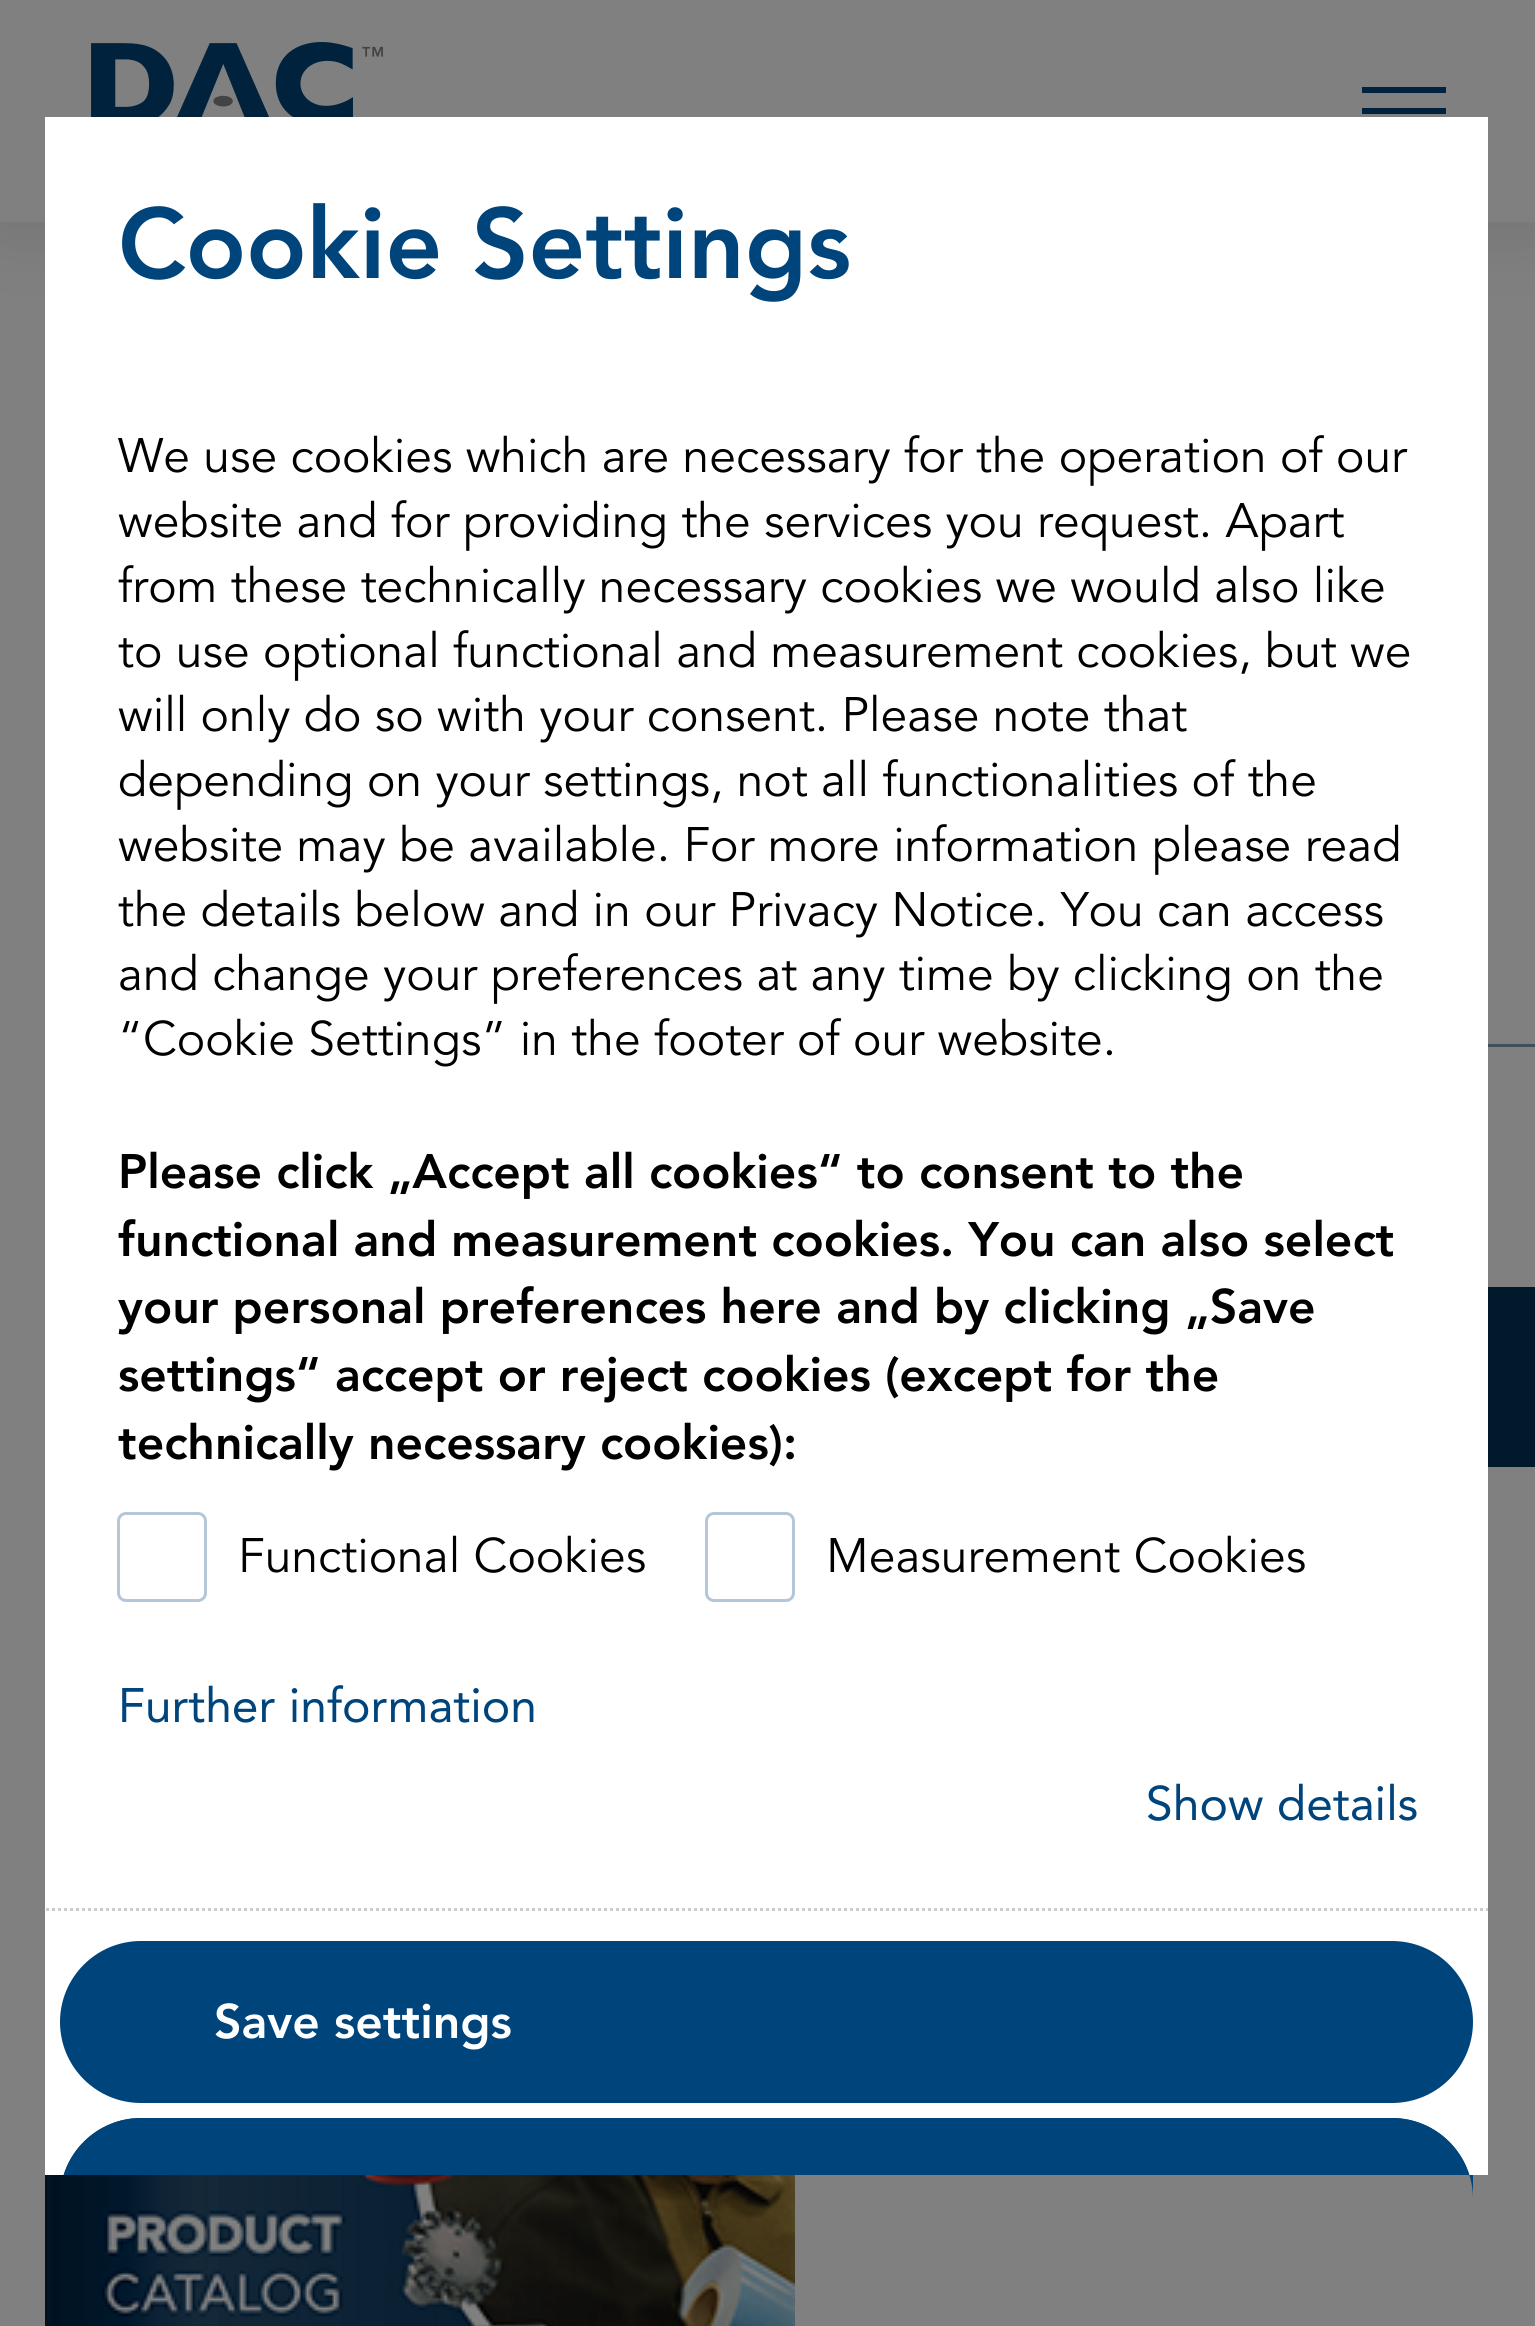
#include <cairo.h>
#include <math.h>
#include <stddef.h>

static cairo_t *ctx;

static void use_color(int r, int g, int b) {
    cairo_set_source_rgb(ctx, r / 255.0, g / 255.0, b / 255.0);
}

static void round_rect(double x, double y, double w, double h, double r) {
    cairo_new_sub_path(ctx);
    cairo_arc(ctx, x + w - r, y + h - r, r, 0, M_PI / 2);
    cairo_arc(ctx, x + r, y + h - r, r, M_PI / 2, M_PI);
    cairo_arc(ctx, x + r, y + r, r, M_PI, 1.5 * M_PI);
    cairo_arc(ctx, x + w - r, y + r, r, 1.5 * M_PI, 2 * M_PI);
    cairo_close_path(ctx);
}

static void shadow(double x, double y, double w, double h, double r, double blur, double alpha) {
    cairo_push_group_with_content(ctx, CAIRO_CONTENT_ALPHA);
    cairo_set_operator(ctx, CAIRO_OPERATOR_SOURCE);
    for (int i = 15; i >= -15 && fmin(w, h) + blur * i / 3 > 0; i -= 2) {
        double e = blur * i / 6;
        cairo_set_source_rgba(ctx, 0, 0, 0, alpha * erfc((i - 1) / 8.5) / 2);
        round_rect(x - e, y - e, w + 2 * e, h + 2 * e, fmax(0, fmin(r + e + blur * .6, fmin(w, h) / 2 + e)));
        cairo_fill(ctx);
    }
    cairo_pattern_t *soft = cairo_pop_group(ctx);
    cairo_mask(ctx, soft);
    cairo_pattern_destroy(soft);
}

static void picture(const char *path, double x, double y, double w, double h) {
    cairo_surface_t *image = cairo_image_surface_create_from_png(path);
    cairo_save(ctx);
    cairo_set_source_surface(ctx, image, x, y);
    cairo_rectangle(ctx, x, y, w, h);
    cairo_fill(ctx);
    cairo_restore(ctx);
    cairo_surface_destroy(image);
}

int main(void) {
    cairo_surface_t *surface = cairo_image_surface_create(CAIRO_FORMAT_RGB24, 1535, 2326);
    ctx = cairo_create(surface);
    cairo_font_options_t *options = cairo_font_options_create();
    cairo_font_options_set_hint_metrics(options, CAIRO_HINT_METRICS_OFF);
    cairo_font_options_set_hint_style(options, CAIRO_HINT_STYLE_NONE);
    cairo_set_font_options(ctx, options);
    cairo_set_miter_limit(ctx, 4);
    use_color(128, 128, 128);
    cairo_paint(ctx);
    use_color(0, 0, 0);
    shadow(0, 12, 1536, 222, 0, 33, 0.1);
    use_color(128, 128, 128);
    cairo_rectangle(ctx, 0, 0, 1535, 222);
    cairo_fill(ctx);
    picture("img1.png", 91, 42, 292, 75);
    use_color(0, 34, 62);
    cairo_rectangle(ctx, 1362, 87, 84, 6);
    cairo_fill(ctx);
    cairo_rectangle(ctx, 1362, 108, 84, 6);
    cairo_fill(ctx);
    use_color(255, 255, 255);
    cairo_rectangle(ctx, 45, 117, 1443, 2058);
    cairo_fill(ctx);
    cairo_select_font_face(ctx, "Avenir Black", CAIRO_FONT_SLANT_NORMAL, CAIRO_FONT_WEIGHT_NORMAL);
    cairo_set_font_size(ctx, 99);
    use_color(0, 68, 124);
    cairo_move_to(ctx, 118, 278);
    cairo_show_text(ctx, "Cookie Settings");
    cairo_select_font_face(ctx, "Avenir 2", CAIRO_FONT_SLANT_NORMAL, CAIRO_FONT_WEIGHT_NORMAL);
    cairo_set_font_size(ctx, 48);
    use_color(0, 0, 0);
    cairo_move_to(ctx, 118, 472);
    cairo_show_text(ctx, "We use cookies which are necessary for the operation of our");
    cairo_move_to(ctx, 118, 537);
    cairo_show_text(ctx, "website and for providing the services you request. Apart");
    cairo_move_to(ctx, 118, 602);
    cairo_show_text(ctx, "from these technically necessary cookies we would also like");
    cairo_move_to(ctx, 118, 667);
    cairo_show_text(ctx, "to use optional functional and measurement cookies, but we");
    cairo_move_to(ctx, 118, 731);
    cairo_show_text(ctx, "will only do so with your consent. Please note that");
    cairo_move_to(ctx, 118, 796);
    cairo_show_text(ctx, "depending on your settings, not all functionalities of the");
    cairo_move_to(ctx, 118, 861);
    cairo_show_text(ctx, "website may be available. For more information please read");
    cairo_move_to(ctx, 118, 926);
    cairo_show_text(ctx, "the details below and in our Privacy Notice. You can access");
    cairo_move_to(ctx, 118, 990);
    cairo_show_text(ctx, "and change your preferences at any time by clicking on the");
    cairo_move_to(ctx, 118, 1055);
    cairo_show_text(ctx, "“Cookie Settings” in the footer of our website.");
    cairo_select_font_face(ctx, "Avenir Black", CAIRO_FONT_SLANT_NORMAL, CAIRO_FONT_WEIGHT_NORMAL);
    cairo_move_to(ctx, 118, 1188);
    cairo_show_text(ctx, "Please click „Accept all cookies“ to consent to the");
    cairo_move_to(ctx, 118, 1256);
    cairo_show_text(ctx, "functional and measurement cookies. You can also select");
    cairo_move_to(ctx, 118, 1323);
    cairo_show_text(ctx, "your personal preferences here and by clicking „Save");
    cairo_move_to(ctx, 118, 1391);
    cairo_show_text(ctx, "settings“ accept or reject cookies (except for the");
    cairo_move_to(ctx, 118, 1459);
    cairo_show_text(ctx, "technically necessary cookies):");
    round_rect(118.5, 1513.5, 87, 87, 7.5);
    use_color(179, 199, 216);
    cairo_set_line_width(ctx, 3);
    cairo_stroke(ctx);
    cairo_select_font_face(ctx, "Avenir 2", CAIRO_FONT_SLANT_NORMAL, CAIRO_FONT_WEIGHT_NORMAL);
    use_color(0, 0, 0);
    cairo_move_to(ctx, 238, 1572);
    cairo_show_text(ctx, "Functional Cookies");
    round_rect(706.5, 1513.5, 87, 87, 7.5);
    use_color(179, 199, 216);
    cairo_stroke(ctx);
    use_color(0, 0, 0);
    cairo_move_to(ctx, 826, 1572);
    cairo_show_text(ctx, "Measurement Cookies");
    cairo_select_font_face(ctx, "Avenir", CAIRO_FONT_SLANT_NORMAL, CAIRO_FONT_WEIGHT_NORMAL);
    use_color(0, 68, 124);
    cairo_move_to(ctx, 118, 1722);
    cairo_show_text(ctx, "Further information");
    cairo_move_to(ctx, 1146, 1820);
    cairo_show_text(ctx, "Show details");
    cairo_save(ctx);
    cairo_rectangle(ctx, 45, 117, 1443, 2058);
    cairo_clip(ctx);
    cairo_new_path(ctx);
    cairo_move_to(ctx, 46, 1909.5);
    cairo_line_to(ctx, 1489, 1909.5);
    use_color(204, 204, 204);
    cairo_set_dash(ctx, (double[]){3, 3}, 2, 0);
    cairo_stroke(ctx);
    cairo_restore(ctx);
    round_rect(61.5, 1942.5, 1410, 159, 79.5);
    cairo_fill_preserve(ctx);
    cairo_stroke(ctx);
    cairo_select_font_face(ctx, "Avenir Black", CAIRO_FONT_SLANT_NORMAL, CAIRO_FONT_WEIGHT_NORMAL);
    use_color(255, 255, 255);
    cairo_move_to(ctx, 214, 2038);
    cairo_show_text(ctx, "Save settings");
    use_color(0, 68, 124);
    cairo_new_path(ctx);
    cairo_move_to(ctx, 141, 2118);
    cairo_line_to(ctx, 1392, 2118);
    cairo_curve_to(ctx, 1436.5, 2118, 1473, 2154.5, 1473, 2199);
    cairo_line_to(ctx, 1473, 2175);
    cairo_line_to(ctx, 60, 2175);
    cairo_line_to(ctx, 60, 2199);
    cairo_curve_to(ctx, 60, 2154.5, 96.5, 2118, 141, 2118);
    cairo_close_path(ctx);
    cairo_fill(ctx);
    picture("img2.png", 45, 2175, 750, 151);
    cairo_save(ctx);
    cairo_rectangle(ctx, 45, 117, 1443, 2058);
    cairo_clip(ctx);
    round_rect(61.5, 2119.5, 1410, 159, 79.5);
    cairo_stroke(ctx);
    cairo_restore(ctx);
    use_color(65, 79, 89);
    cairo_rectangle(ctx, 1488, 1044, 47, 3);
    cairo_fill(ctx);
    use_color(0, 25, 43);
    cairo_rectangle(ctx, 1488, 1287, 47, 180);
    cairo_fill(ctx);
    cairo_surface_write_to_png(surface, "result.png");
    cairo_font_options_destroy(options);
    cairo_destroy(ctx);
    cairo_surface_destroy(surface);
    return 0;
}
